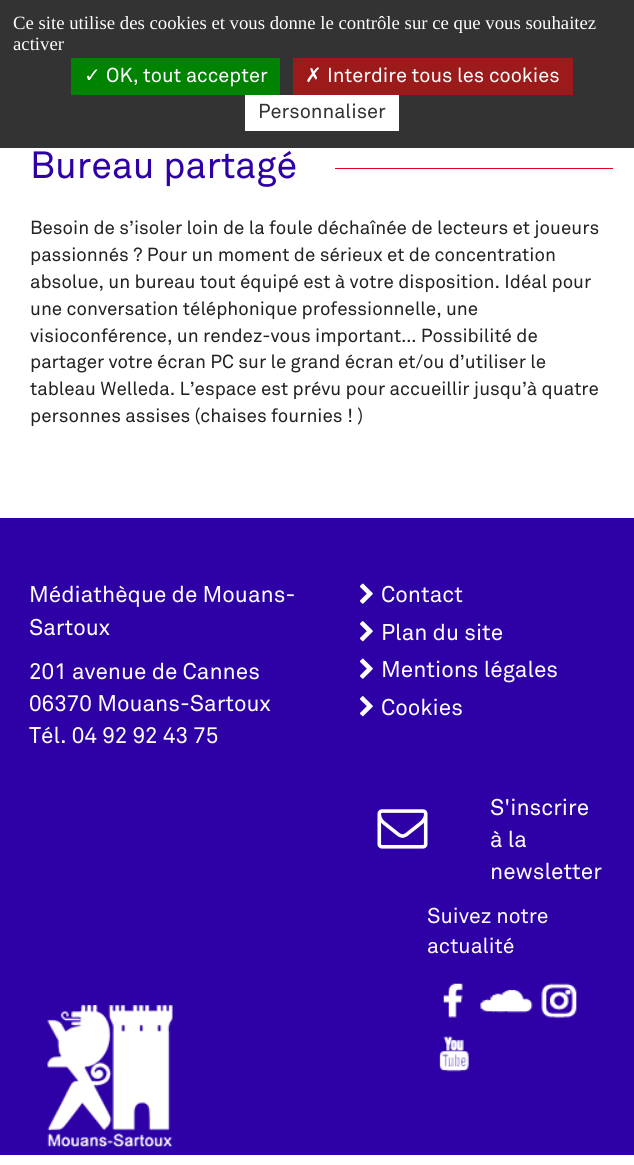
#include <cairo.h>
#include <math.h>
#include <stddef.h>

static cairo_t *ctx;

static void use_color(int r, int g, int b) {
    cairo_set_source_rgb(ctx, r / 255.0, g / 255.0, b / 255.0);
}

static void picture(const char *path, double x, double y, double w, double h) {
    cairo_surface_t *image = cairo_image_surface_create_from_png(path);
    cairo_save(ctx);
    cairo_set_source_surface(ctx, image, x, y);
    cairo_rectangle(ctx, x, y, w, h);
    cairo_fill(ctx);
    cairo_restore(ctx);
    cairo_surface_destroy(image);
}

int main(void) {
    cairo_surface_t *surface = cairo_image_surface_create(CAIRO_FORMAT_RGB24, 634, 1165);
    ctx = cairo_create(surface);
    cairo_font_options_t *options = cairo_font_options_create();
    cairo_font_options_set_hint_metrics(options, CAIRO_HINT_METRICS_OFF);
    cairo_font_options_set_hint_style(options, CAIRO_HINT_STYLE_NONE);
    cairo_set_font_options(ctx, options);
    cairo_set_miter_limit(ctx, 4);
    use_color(255, 255, 255);
    cairo_paint(ctx);
    use_color(51, 51, 51);
    cairo_rectangle(ctx, 0, 0, 634, 148);
    cairo_fill(ctx);
    cairo_select_font_face(ctx, "Liberation Serif", CAIRO_FONT_SLANT_NORMAL, CAIRO_FONT_WEIGHT_NORMAL);
    cairo_set_font_size(ctx, 18.75);
    use_color(255, 255, 255);
    cairo_move_to(ctx, 13, 29);
    cairo_show_text(ctx, "Ce site utilise des cookies et vous donne le contrôle sur ce que vous souhaitez");
    cairo_move_to(ctx, 13, 50);
    cairo_show_text(ctx, "activer");
    use_color(0, 131, 0);
    cairo_rectangle(ctx, 71, 58, 209, 37);
    cairo_fill(ctx);
    cairo_select_font_face(ctx, "DejaVu Sans", CAIRO_FONT_SLANT_NORMAL, CAIRO_FONT_WEIGHT_NORMAL);
    cairo_set_font_size(ctx, 20);
    use_color(255, 255, 255);
    cairo_move_to(ctx, 84, 82);
    cairo_show_text(ctx, "✓");
    cairo_select_font_face(ctx, "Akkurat", CAIRO_FONT_SLANT_NORMAL, CAIRO_FONT_WEIGHT_NORMAL);
    cairo_move_to(ctx, 106, 82);
    cairo_show_text(ctx, "OK, tout accepter");
    use_color(156, 26, 26);
    cairo_rectangle(ctx, 293, 58, 280, 37);
    cairo_fill(ctx);
    cairo_select_font_face(ctx, "DejaVu Sans", CAIRO_FONT_SLANT_NORMAL, CAIRO_FONT_WEIGHT_NORMAL);
    use_color(255, 255, 255);
    cairo_move_to(ctx, 305, 82);
    cairo_show_text(ctx, "✗");
    cairo_select_font_face(ctx, "Akkurat", CAIRO_FONT_SLANT_NORMAL, CAIRO_FONT_WEIGHT_NORMAL);
    cairo_move_to(ctx, 327, 82);
    cairo_show_text(ctx, "Interdire tous les cookies");
    cairo_rectangle(ctx, 245, 95, 154, 36);
    cairo_fill(ctx);
    use_color(51, 51, 51);
    cairo_move_to(ctx, 258, 118);
    cairo_show_text(ctx, "Personnaliser");
    cairo_set_font_size(ctx, 37.5);
    use_color(46, 1, 166);
    cairo_move_to(ctx, 30, 178);
    cairo_show_text(ctx, "Bureau partagé");
    use_color(230, 0, 38);
    cairo_rectangle(ctx, 335, 168, 278, 1);
    cairo_fill(ctx);
    cairo_set_font_size(ctx, 18.75);
    use_color(34, 34, 34);
    cairo_move_to(ctx, 30, 234);
    cairo_show_text(ctx, "Besoin de s’isoler loin de la foule déchaînée de lecteurs et joueurs");
    cairo_move_to(ctx, 30, 261);
    cairo_show_text(ctx, "passionnés ? Pour un moment de sérieux et de concentration");
    cairo_move_to(ctx, 30, 288);
    cairo_show_text(ctx, "absolue, un bureau tout équipé est à votre disposition. Idéal pour");
    cairo_move_to(ctx, 30, 315);
    cairo_show_text(ctx, "une conversation téléphonique professionnelle, une");
    cairo_move_to(ctx, 30, 342);
    cairo_show_text(ctx, "visioconférence, un rendez-vous important… Possibilité de");
    cairo_move_to(ctx, 30, 368);
    cairo_show_text(ctx, "partager votre écran PC sur le grand écran et/ou d’utiliser le");
    cairo_move_to(ctx, 30, 395);
    cairo_show_text(ctx, "tableau Welleda. L’espace est prévu pour accueillir jusqu’à quatre");
    cairo_move_to(ctx, 30, 422);
    cairo_show_text(ctx, "personnes assises (chaises fournies ! )");
    use_color(46, 1, 166);
    cairo_rectangle(ctx, 0, 518, 634, 637);
    cairo_fill(ctx);
    cairo_set_font_size(ctx, 22.5);
    use_color(255, 255, 255);
    cairo_move_to(ctx, 29, 602);
    cairo_show_text(ctx, "Médiathèque de Mouans-");
    cairo_move_to(ctx, 29, 635);
    cairo_show_text(ctx, "Sartoux");
    cairo_move_to(ctx, 29, 679);
    cairo_show_text(ctx, "201 avenue de Cannes");
    cairo_move_to(ctx, 29, 711);
    cairo_show_text(ctx, "06370 Mouans-Sartoux");
    cairo_move_to(ctx, 29, 743);
    cairo_show_text(ctx, "Tél. 04 92 92 43 75");
    picture("img1.png", 359, 583, 14, 21);
    cairo_move_to(ctx, 381, 602);
    cairo_show_text(ctx, "Contact");
    picture("img2.png", 359, 621, 14, 21);
    cairo_move_to(ctx, 381, 640);
    cairo_show_text(ctx, "Plan du site");
    picture("img1.png", 359, 658, 14, 21);
    cairo_move_to(ctx, 381, 677);
    cairo_show_text(ctx, "Mentions légales");
    picture("img2.png", 359, 696, 14, 21);
    cairo_move_to(ctx, 381, 715);
    cairo_show_text(ctx, "Cookies");
    cairo_move_to(ctx, 490, 815);
    cairo_show_text(ctx, "S'inscrire");
    picture("img3.png", 377, 809, 51, 40);
    cairo_move_to(ctx, 490, 847);
    cairo_show_text(ctx, "à la");
    cairo_move_to(ctx, 490, 879);
    cairo_show_text(ctx, "newsletter");
    cairo_set_font_size(ctx, 21.25);
    cairo_move_to(ctx, 427, 923);
    cairo_show_text(ctx, "Suivez notre");
    cairo_move_to(ctx, 427, 953);
    cairo_show_text(ctx, "actualité");
    picture("img4.png", 443, 983, 20, 35);
    picture("img5.png", 480, 989, 53, 24);
    picture("img6.png", 541, 983, 36, 35);
    picture("img7.png", 439, 1036, 30, 36);
    picture("img8.png", 47, 1005, 126, 142);
    cairo_surface_write_to_png(surface, "result.png");
    cairo_font_options_destroy(options);
    cairo_destroy(ctx);
    cairo_surface_destroy(surface);
    return 0;
}
